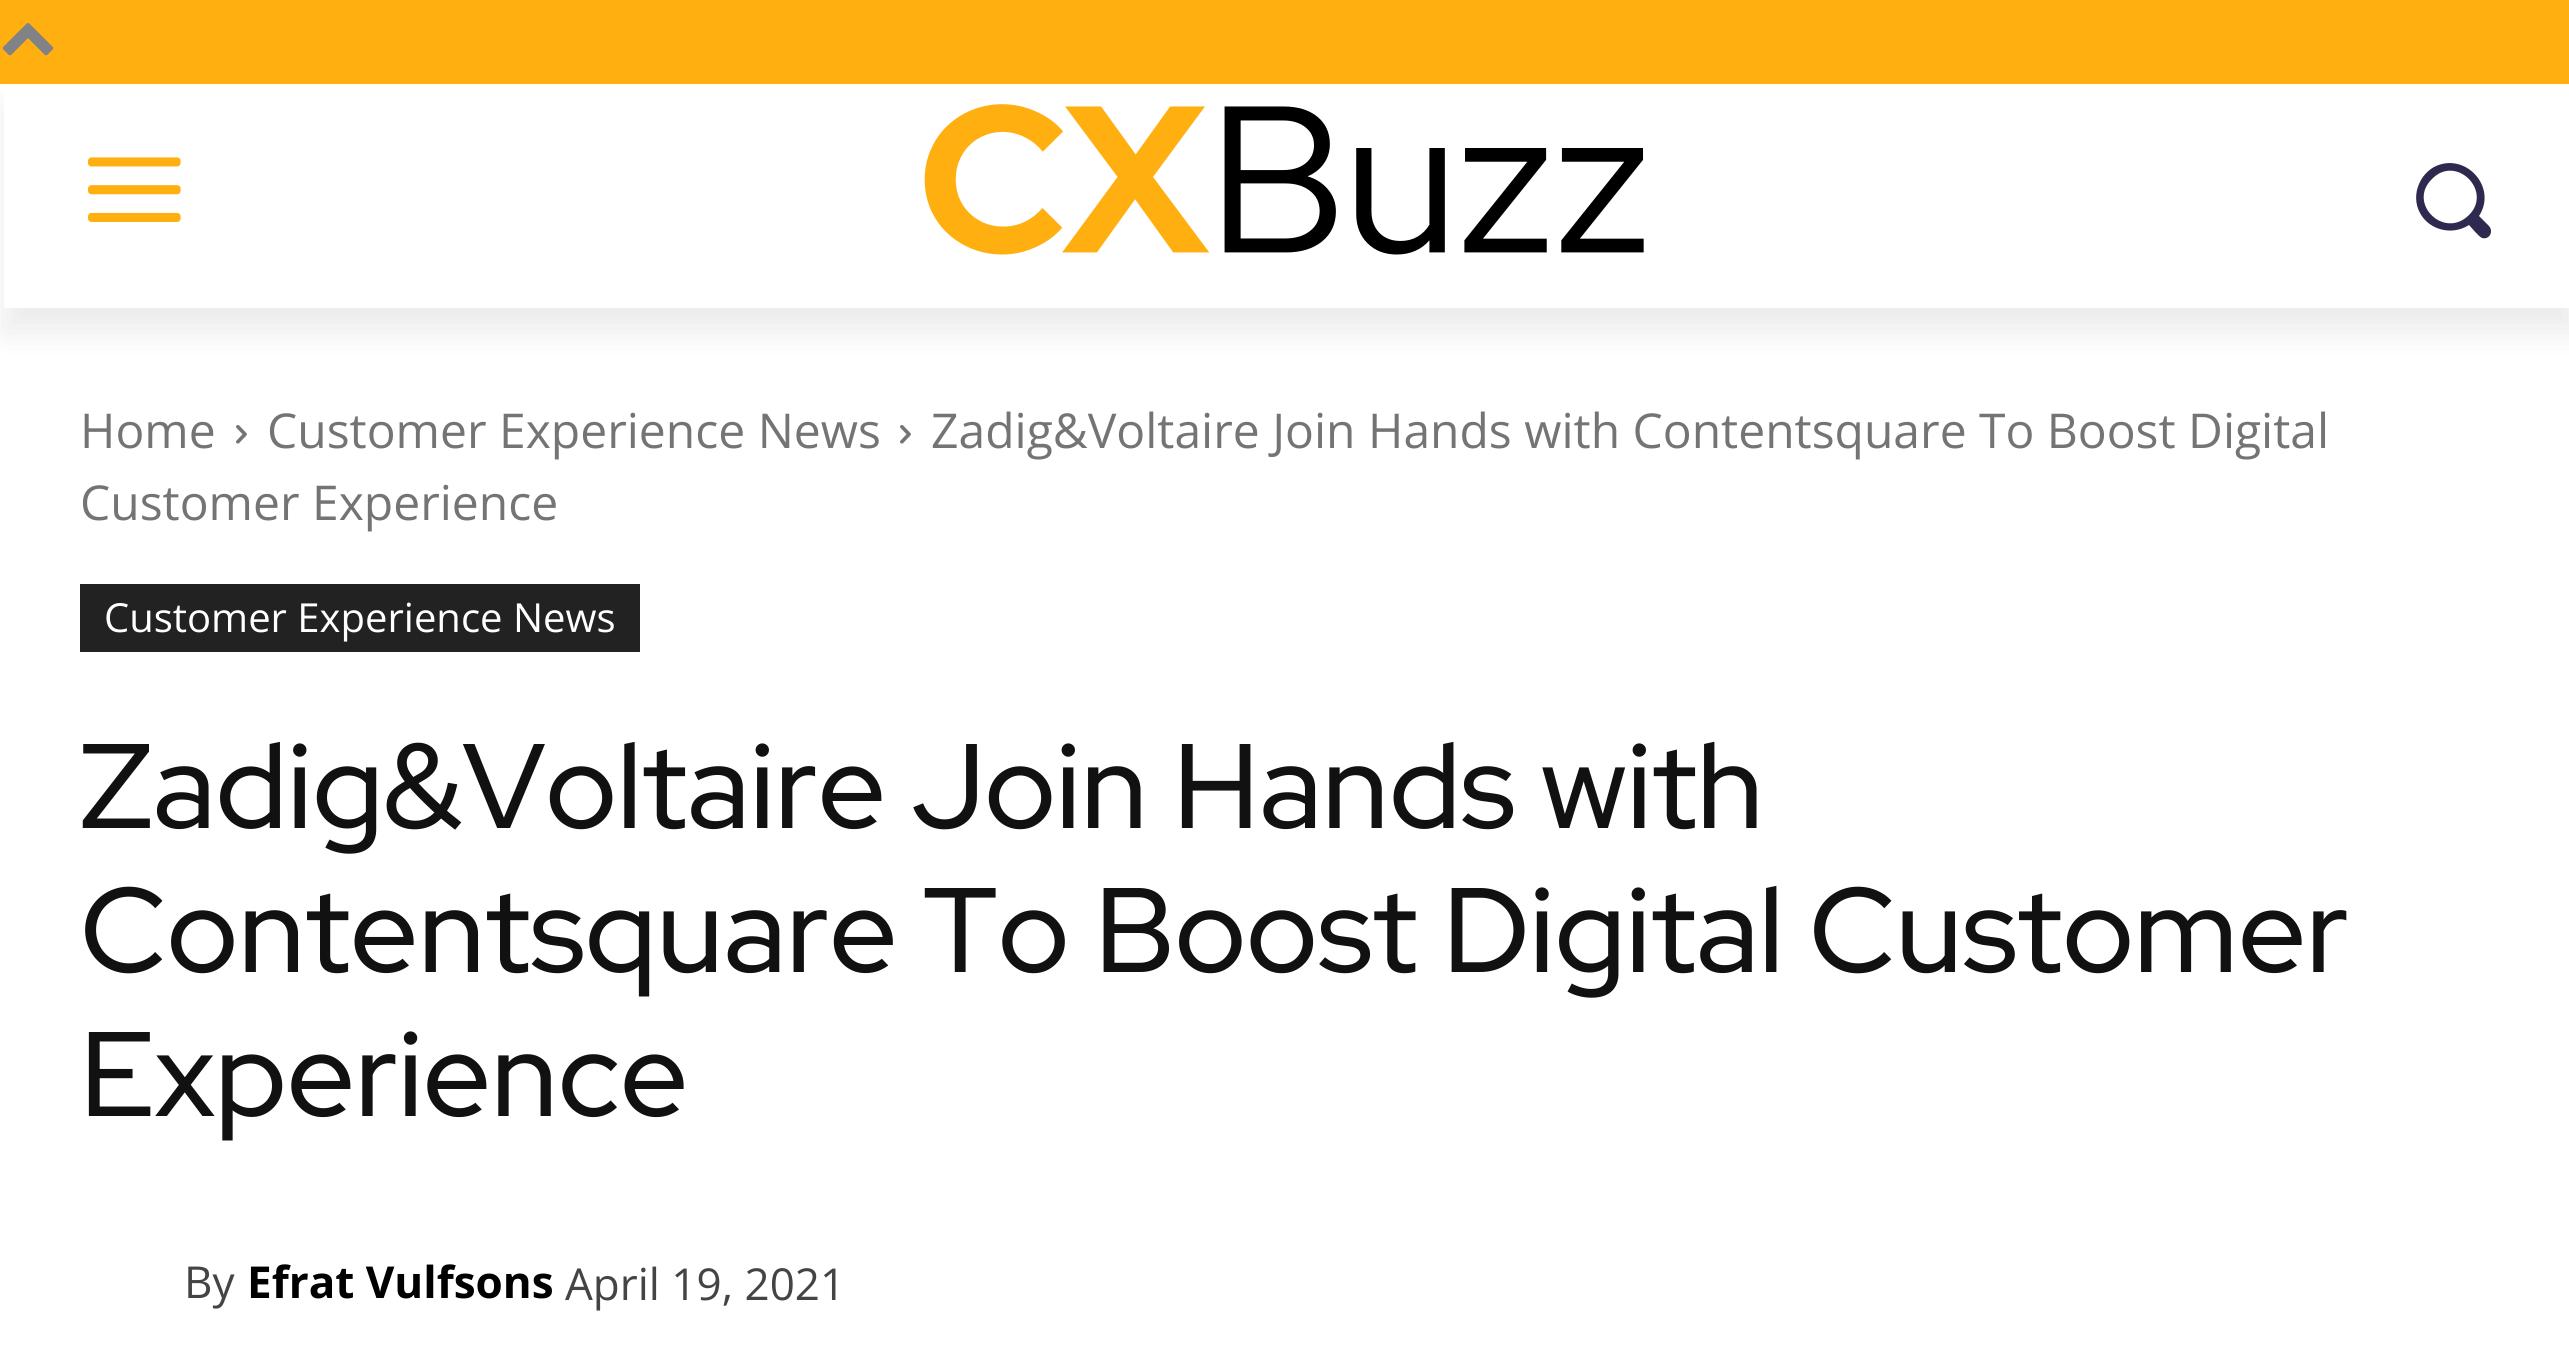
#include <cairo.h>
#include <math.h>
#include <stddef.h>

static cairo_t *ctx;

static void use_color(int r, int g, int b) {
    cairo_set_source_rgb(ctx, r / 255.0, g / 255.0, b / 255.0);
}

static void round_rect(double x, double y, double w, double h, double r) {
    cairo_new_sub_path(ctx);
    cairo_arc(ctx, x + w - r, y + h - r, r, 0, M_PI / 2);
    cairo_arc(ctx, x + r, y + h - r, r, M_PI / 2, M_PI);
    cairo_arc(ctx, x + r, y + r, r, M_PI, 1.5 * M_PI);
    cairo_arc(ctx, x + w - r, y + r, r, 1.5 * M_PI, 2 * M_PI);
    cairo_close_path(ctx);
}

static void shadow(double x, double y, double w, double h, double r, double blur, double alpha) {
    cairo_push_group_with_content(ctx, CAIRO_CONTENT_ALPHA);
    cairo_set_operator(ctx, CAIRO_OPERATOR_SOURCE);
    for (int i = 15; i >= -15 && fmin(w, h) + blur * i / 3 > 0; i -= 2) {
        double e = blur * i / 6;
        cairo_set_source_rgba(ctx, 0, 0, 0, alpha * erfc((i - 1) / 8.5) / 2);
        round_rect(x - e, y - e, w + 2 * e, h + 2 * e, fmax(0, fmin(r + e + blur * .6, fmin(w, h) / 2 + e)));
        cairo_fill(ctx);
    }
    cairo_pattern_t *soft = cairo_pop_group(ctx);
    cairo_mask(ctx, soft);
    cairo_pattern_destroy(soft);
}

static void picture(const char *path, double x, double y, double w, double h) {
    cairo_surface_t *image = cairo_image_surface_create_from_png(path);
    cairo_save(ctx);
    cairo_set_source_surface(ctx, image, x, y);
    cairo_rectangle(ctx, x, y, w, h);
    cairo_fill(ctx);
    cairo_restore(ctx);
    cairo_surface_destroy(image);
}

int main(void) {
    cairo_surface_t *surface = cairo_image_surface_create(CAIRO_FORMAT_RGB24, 2569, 1353);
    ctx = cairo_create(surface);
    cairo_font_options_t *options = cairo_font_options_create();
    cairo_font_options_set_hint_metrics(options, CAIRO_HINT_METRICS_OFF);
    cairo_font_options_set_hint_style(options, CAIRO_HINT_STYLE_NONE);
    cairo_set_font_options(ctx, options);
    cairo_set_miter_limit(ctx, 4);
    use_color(255, 255, 255);
    cairo_paint(ctx);
    use_color(255, 175, 16);
    cairo_rectangle(ctx, 0, 0, 2569, 84);
    cairo_fill(ctx);
    picture("img1.png", 2, 23, 52, 33);
    picture("img2.png", 88, 157, 93, 65);
    picture("img3.png", 924, 104, 720, 151);
    use_color(46, 41, 78);
    cairo_new_path(ctx);
    cairo_move_to(ctx, 2489, 226);
    cairo_line_to(ctx, 2479, 216);
    cairo_curve_to(ctx, 2498, 187, 2465, 151, 2434, 167);
    cairo_curve_to(ctx, 2427, 171, 2422, 177, 2419, 184);
    cairo_curve_to(ctx, 2415, 193, 2415, 204, 2420, 213);
    cairo_curve_to(ctx, 2429, 230, 2452, 236, 2469, 225);
    cairo_curve_to(ctx, 2472, 228, 2478, 236, 2482, 238);
    cairo_curve_to(ctx, 2489, 240, 2494, 232, 2489, 226);
    cairo_close_path(ctx);
    cairo_move_to(ctx, 2469, 215);
    cairo_curve_to(ctx, 2444, 240, 2407, 203, 2432, 179);
    cairo_curve_to(ctx, 2456, 154, 2493, 191, 2469, 215);
    cairo_close_path(ctx);
    cairo_fill(ctx);
    cairo_save(ctx);
    cairo_set_fill_rule(ctx, CAIRO_FILL_RULE_EVEN_ODD);
    cairo_new_path(ctx);
    cairo_move_to(ctx, 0, 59);
    cairo_line_to(ctx, 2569, 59);
    cairo_line_to(ctx, 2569, 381);
    cairo_line_to(ctx, 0, 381);
    cairo_close_path(ctx);
    cairo_move_to(ctx, 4, 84);
    cairo_line_to(ctx, 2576, 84);
    cairo_line_to(ctx, 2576, 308);
    cairo_line_to(ctx, 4, 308);
    cairo_close_path(ctx);
    cairo_clip(ctx);
    use_color(0, 0, 0);
    shadow(4, 108, 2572, 224, 0, 16, 0.08);
    cairo_restore(ctx);
    cairo_select_font_face(ctx, "Open Sans", CAIRO_FONT_SLANT_NORMAL, CAIRO_FONT_WEIGHT_NORMAL);
    cairo_set_font_size(ctx, 48);
    use_color(116, 116, 116);
    cairo_move_to(ctx, 80, 448);
    cairo_show_text(ctx, "Home");
    picture("img4.png", 236, 425, 11, 19);
    cairo_move_to(ctx, 267, 448);
    cairo_show_text(ctx, "Customer Experience News");
    picture("img4.png", 900, 425, 11, 19);
    cairo_move_to(ctx, 931, 448);
    cairo_show_text(ctx, "Zadig&Voltaire Join Hands with Contentsquare To Boost Digital");
    cairo_move_to(ctx, 80, 520);
    cairo_show_text(ctx, "Customer Experience");
    use_color(34, 34, 34);
    cairo_rectangle(ctx, 80, 584, 560, 68);
    cairo_fill(ctx);
    cairo_set_font_size(ctx, 40);
    use_color(255, 255, 255);
    cairo_move_to(ctx, 104, 632);
    cairo_show_text(ctx, "Customer Experience News");
    cairo_select_font_face(ctx, "Red Hat Display Medium", CAIRO_FONT_SLANT_NORMAL, CAIRO_FONT_WEIGHT_NORMAL);
    cairo_set_font_size(ctx, 120);
    use_color(17, 17, 17);
    cairo_move_to(ctx, 80, 828);
    cairo_show_text(ctx, "Zadig&Voltaire Join Hands with");
    cairo_move_to(ctx, 80, 972);
    cairo_show_text(ctx, "Contentsquare To Boost Digital Customer");
    cairo_move_to(ctx, 80, 1116);
    cairo_show_text(ctx, "Experience");
    cairo_select_font_face(ctx, "Open Sans", CAIRO_FONT_SLANT_NORMAL, CAIRO_FONT_WEIGHT_NORMAL);
    cairo_set_font_size(ctx, 44);
    use_color(68, 68, 68);
    cairo_move_to(ctx, 184, 1298);
    cairo_show_text(ctx, "By");
    cairo_select_font_face(ctx, "Open Sans", CAIRO_FONT_SLANT_NORMAL, CAIRO_FONT_WEIGHT_BOLD);
    use_color(0, 0, 0);
    cairo_move_to(ctx, 247, 1298);
    cairo_show_text(ctx, "Efrat Vulfsons");
    cairo_select_font_face(ctx, "Open Sans", CAIRO_FONT_SLANT_NORMAL, CAIRO_FONT_WEIGHT_NORMAL);
    use_color(68, 68, 68);
    cairo_move_to(ctx, 565, 1300);
    cairo_show_text(ctx, "April 19, 2021");
    cairo_surface_write_to_png(surface, "result.png");
    cairo_font_options_destroy(options);
    cairo_destroy(ctx);
    cairo_surface_destroy(surface);
    return 0;
}
